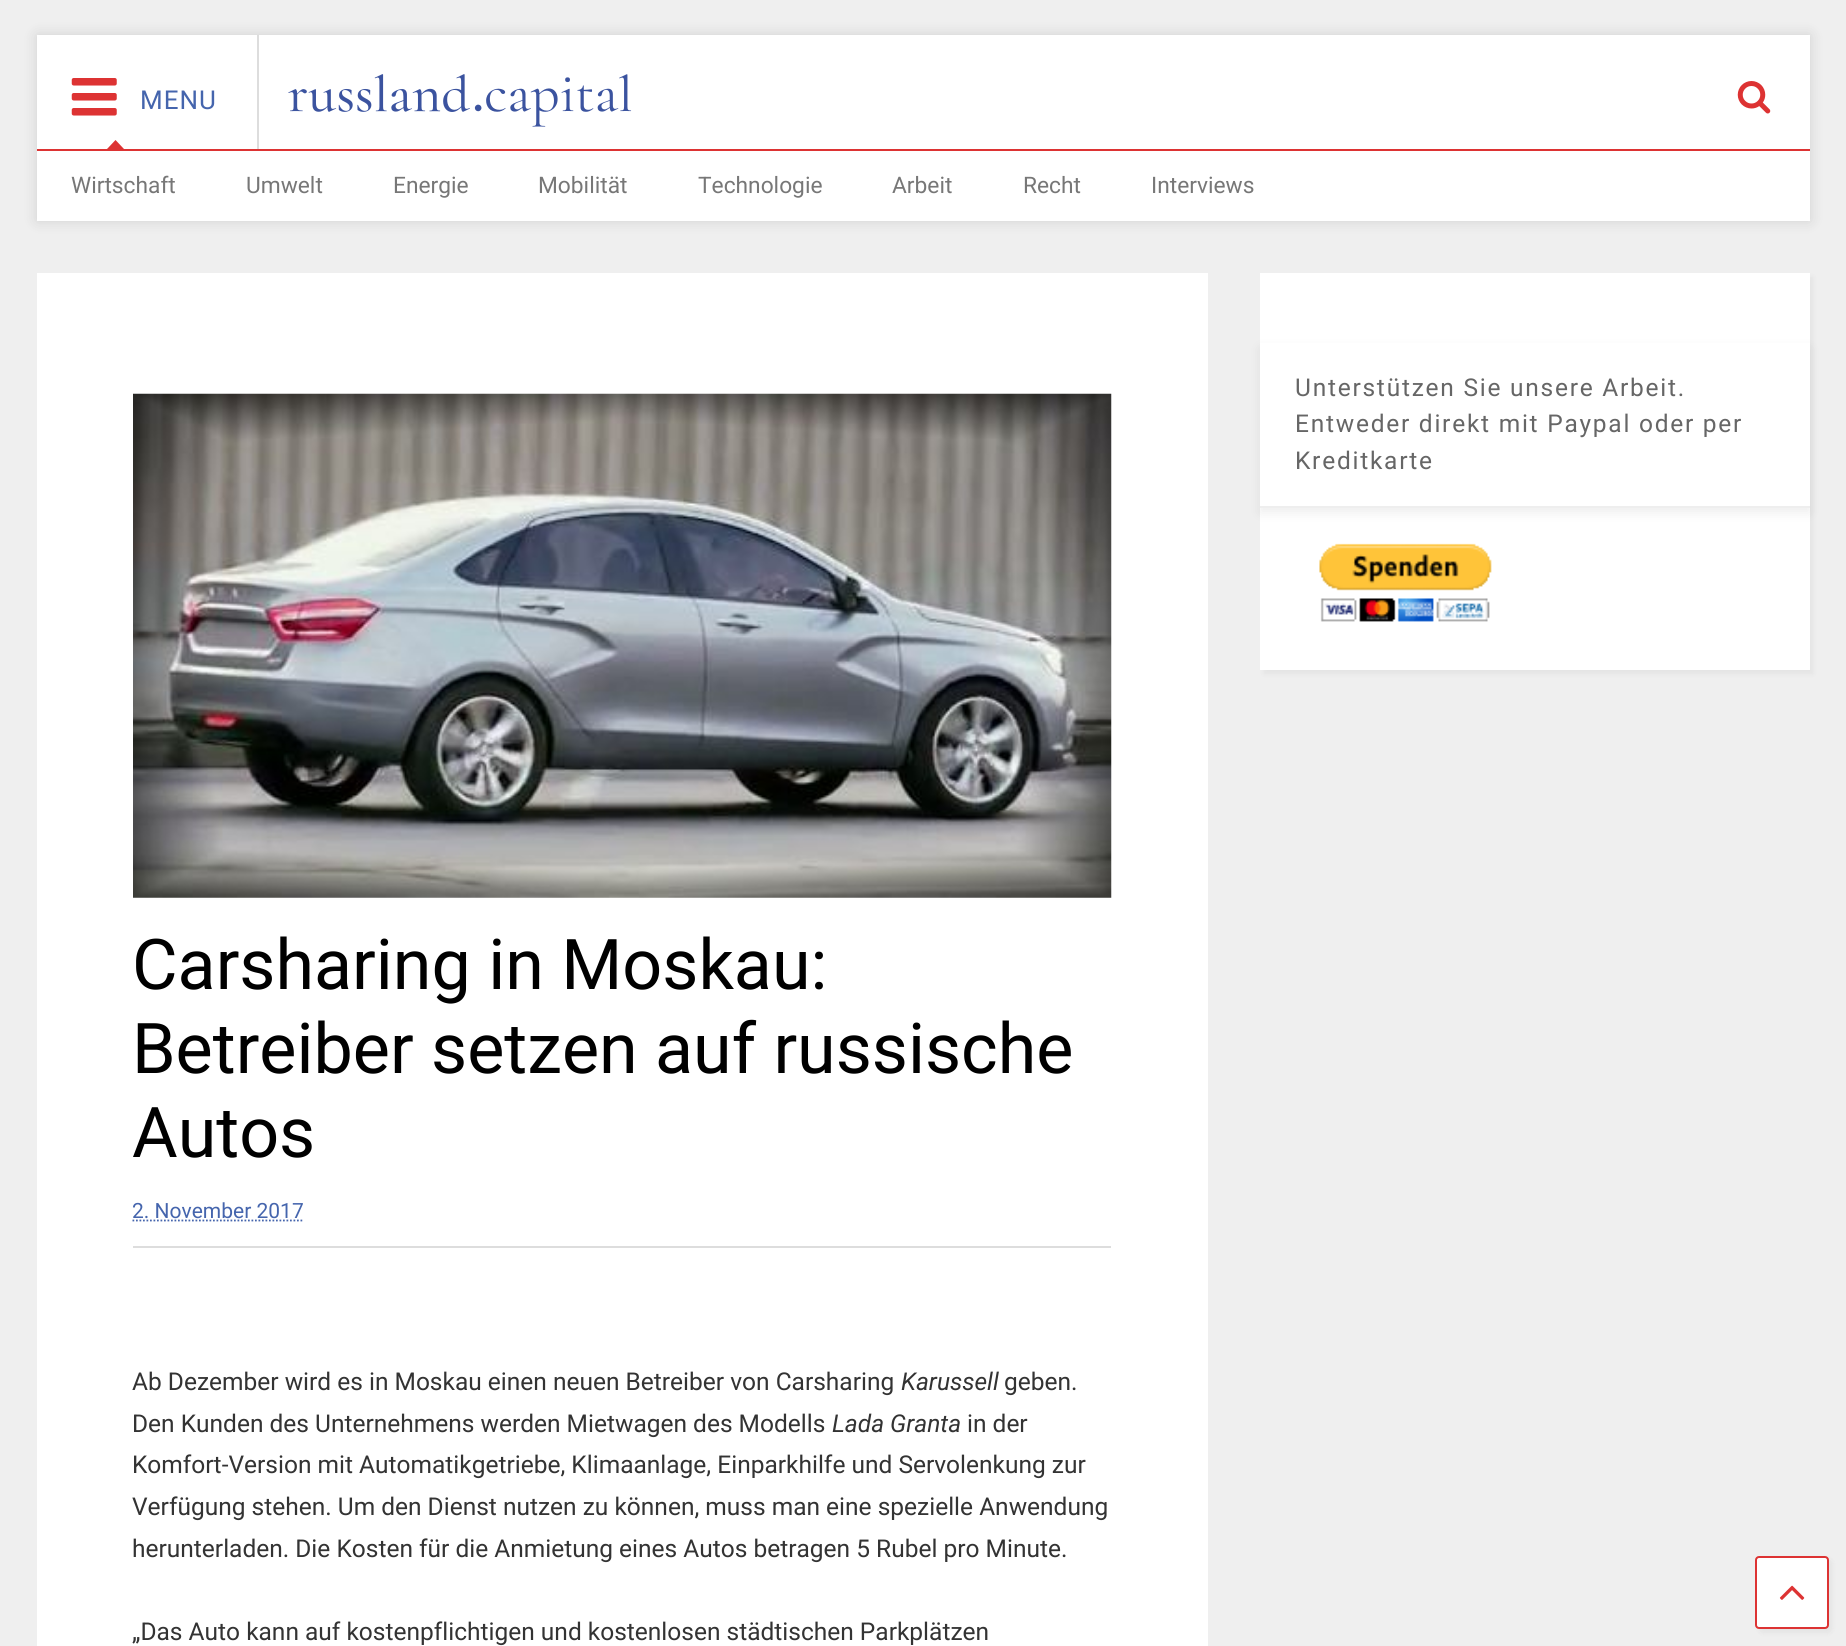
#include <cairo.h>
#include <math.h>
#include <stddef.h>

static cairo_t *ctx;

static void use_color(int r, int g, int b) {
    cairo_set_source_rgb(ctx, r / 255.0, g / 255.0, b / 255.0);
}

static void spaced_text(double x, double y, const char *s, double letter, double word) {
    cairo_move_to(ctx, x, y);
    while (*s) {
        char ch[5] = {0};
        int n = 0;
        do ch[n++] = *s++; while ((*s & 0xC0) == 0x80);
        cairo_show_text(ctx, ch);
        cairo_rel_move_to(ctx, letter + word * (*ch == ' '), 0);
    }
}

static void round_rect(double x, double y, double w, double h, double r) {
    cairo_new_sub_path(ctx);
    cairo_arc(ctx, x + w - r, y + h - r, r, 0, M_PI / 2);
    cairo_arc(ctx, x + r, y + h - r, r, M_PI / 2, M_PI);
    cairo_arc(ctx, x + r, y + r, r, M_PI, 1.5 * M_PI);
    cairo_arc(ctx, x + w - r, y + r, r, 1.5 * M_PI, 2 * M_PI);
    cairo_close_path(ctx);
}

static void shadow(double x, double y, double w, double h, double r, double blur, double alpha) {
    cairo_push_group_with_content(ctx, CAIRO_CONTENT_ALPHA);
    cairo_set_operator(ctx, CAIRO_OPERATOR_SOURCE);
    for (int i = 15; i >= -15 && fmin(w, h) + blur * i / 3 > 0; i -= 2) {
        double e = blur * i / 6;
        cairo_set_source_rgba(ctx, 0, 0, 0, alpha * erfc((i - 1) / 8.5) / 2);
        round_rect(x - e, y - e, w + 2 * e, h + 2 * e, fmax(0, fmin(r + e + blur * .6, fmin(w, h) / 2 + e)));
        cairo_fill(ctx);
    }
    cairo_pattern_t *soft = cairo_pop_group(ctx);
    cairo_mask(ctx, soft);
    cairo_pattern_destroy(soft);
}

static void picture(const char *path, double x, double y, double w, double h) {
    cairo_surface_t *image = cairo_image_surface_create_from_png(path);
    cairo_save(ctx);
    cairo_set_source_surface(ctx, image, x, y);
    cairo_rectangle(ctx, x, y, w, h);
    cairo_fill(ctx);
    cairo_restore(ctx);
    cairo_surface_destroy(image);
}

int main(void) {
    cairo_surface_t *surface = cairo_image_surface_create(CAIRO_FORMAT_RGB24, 1846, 1646);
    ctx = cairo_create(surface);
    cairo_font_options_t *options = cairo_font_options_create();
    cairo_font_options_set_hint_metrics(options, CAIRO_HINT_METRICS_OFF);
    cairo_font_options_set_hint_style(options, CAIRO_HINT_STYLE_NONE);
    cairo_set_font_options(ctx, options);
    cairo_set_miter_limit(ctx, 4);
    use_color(239, 239, 239);
    cairo_paint(ctx);
    use_color(0, 0, 0);
    shadow(37, 35, 1773, 186, 0, 7, 0.13);
    use_color(255, 255, 255);
    cairo_rectangle(ctx, 37, 35, 1773, 186);
    cairo_fill(ctx);
    picture("img1.png", 71, 78, 46, 38);
    cairo_select_font_face(ctx, "Roboto", CAIRO_FONT_SLANT_NORMAL, CAIRO_FONT_WEIGHT_NORMAL);
    cairo_set_font_size(ctx, 26);
    use_color(69, 101, 173);
    spaced_text(140, 109, "MENU", 1, 0);
    use_color(221, 51, 51);
    cairo_new_path(ctx);
    cairo_move_to(ctx, 124, 149);
    cairo_line_to(ctx, 107, 149);
    cairo_line_to(ctx, 115.5, 140);
    cairo_close_path(ctx);
    cairo_fill(ctx);
    use_color(221, 221, 221);
    cairo_rectangle(ctx, 257, 35, 2, 114);
    cairo_fill(ctx);
    picture("img2.png", 288, 74, 344, 53);
    picture("img3.png", 1737, 81, 34, 33);
    use_color(221, 51, 51);
    cairo_rectangle(ctx, 37, 149, 1773, 2);
    cairo_fill(ctx);
    cairo_set_font_size(ctx, 22.75);
    use_color(119, 119, 119);
    cairo_move_to(ctx, 71, 193);
    cairo_show_text(ctx, "Wirtschaft");
    cairo_move_to(ctx, 246, 193);
    cairo_show_text(ctx, "Umwelt");
    cairo_move_to(ctx, 393, 193);
    cairo_show_text(ctx, "Energie");
    cairo_move_to(ctx, 538, 193);
    cairo_show_text(ctx, "Mobilität");
    cairo_move_to(ctx, 698, 193);
    cairo_show_text(ctx, "Technologie");
    cairo_move_to(ctx, 892, 193);
    cairo_show_text(ctx, "Arbeit");
    cairo_move_to(ctx, 1023, 193);
    cairo_show_text(ctx, "Recht");
    cairo_move_to(ctx, 1151, 193);
    cairo_show_text(ctx, "Interviews");
    use_color(0, 0, 0);
    shadow(1264, 277, 549, 397, 0, 2.5, 0.05);
    use_color(255, 255, 255);
    cairo_rectangle(ctx, 1260, 273, 550, 397);
    cairo_fill(ctx);
    cairo_save(ctx);
    cairo_set_fill_rule(ctx, CAIRO_FILL_RULE_EVEN_ODD);
    cairo_new_path(ctx);
    cairo_move_to(ctx, 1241, 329);
    cairo_line_to(ctx, 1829, 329);
    cairo_line_to(ctx, 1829, 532);
    cairo_line_to(ctx, 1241, 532);
    cairo_close_path(ctx);
    cairo_move_to(ctx, 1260, 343);
    cairo_line_to(ctx, 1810, 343);
    cairo_line_to(ctx, 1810, 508);
    cairo_line_to(ctx, 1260, 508);
    cairo_close_path(ctx);
    cairo_clip(ctx);
    use_color(0, 0, 0);
    shadow(1260, 348, 550, 165, 0, 6, 0.07);
    cairo_restore(ctx);
    use_color(238, 238, 238);
    cairo_rectangle(ctx, 1260, 506, 550, 2);
    cairo_fill(ctx);
    cairo_set_font_size(ctx, 24.5);
    use_color(102, 102, 102);
    spaced_text(1295, 396, "Unterstützen Sie unsere Arbeit.", 1.75, 0);
    spaced_text(1295, 432, "Entweder direkt mit Paypal oder per", 1.75, 0);
    spaced_text(1295, 469, "Kreditkarte", 1.75, 0);
    picture("img4.png", 1319, 543, 173, 79);
    use_color(255, 255, 255);
    cairo_rectangle(ctx, 37, 273, 1171, 1373);
    cairo_fill(ctx);
    picture("img5.png", 133, 393, 979, 505);
    cairo_set_font_size(ctx, 70);
    use_color(0, 0, 0);
    cairo_move_to(ctx, 132, 989);
    cairo_show_text(ctx, "Carsharing in Moskau:");
    cairo_move_to(ctx, 132, 1073);
    cairo_show_text(ctx, "Betreiber setzen auf russische");
    cairo_move_to(ctx, 132, 1157);
    cairo_show_text(ctx, "Autos");
    use_color(221, 221, 221);
    cairo_rectangle(ctx, 133, 1246, 978, 2);
    cairo_fill(ctx);
    cairo_set_font_size(ctx, 21);
    use_color(69, 101, 173);
    cairo_move_to(ctx, 132, 1218);
    cairo_show_text(ctx, "2. November 2017");
    cairo_new_path(ctx);
    cairo_move_to(ctx, 132.5, 1220.5);
    cairo_line_to(ctx, 304, 1220.5);
    cairo_set_line_width(ctx, 1.8);
    cairo_set_dash(ctx, (double[]){1.75, 1.75}, 2, 0);
    cairo_stroke(ctx);
    cairo_set_font_size(ctx, 24.5);
    use_color(51, 51, 51);
    cairo_move_to(ctx, 132, 1390);
    cairo_show_text(ctx, "Ab Dezember wird es in Moskau einen neuen Betreiber von Carsharing");
    cairo_select_font_face(ctx, "Roboto", CAIRO_FONT_SLANT_ITALIC, CAIRO_FONT_WEIGHT_NORMAL);
    cairo_move_to(ctx, 901, 1390);
    cairo_show_text(ctx, "Karussell");
    cairo_select_font_face(ctx, "Roboto", CAIRO_FONT_SLANT_NORMAL, CAIRO_FONT_WEIGHT_NORMAL);
    cairo_move_to(ctx, 1004, 1390);
    cairo_show_text(ctx, "geben.");
    cairo_move_to(ctx, 132, 1432);
    cairo_show_text(ctx, "Den Kunden des Unternehmens werden Mietwagen des Modells");
    cairo_select_font_face(ctx, "Roboto", CAIRO_FONT_SLANT_ITALIC, CAIRO_FONT_WEIGHT_NORMAL);
    cairo_move_to(ctx, 832, 1432);
    cairo_show_text(ctx, "Lada Granta");
    cairo_select_font_face(ctx, "Roboto", CAIRO_FONT_SLANT_NORMAL, CAIRO_FONT_WEIGHT_NORMAL);
    cairo_move_to(ctx, 967, 1432);
    cairo_show_text(ctx, "in der");
    cairo_move_to(ctx, 132, 1473);
    cairo_show_text(ctx, "Komfort-Version mit Automatikgetriebe, Klimaanlage, Einparkhilfe und Servolenkung zur");
    cairo_move_to(ctx, 132, 1515);
    cairo_show_text(ctx, "Verfügung stehen. Um den Dienst nutzen zu können, muss man eine spezielle Anwendung");
    cairo_move_to(ctx, 132, 1557);
    cairo_show_text(ctx, "herunterladen. Die Kosten für die Anmietung eines Autos betragen 5 Rubel pro Minute.");
    cairo_move_to(ctx, 132, 1640);
    cairo_show_text(ctx, "„Das Auto kann auf kostenpflichtigen und kostenlosen städtischen Parkplätzen");
    use_color(0, 0, 0);
    shadow(1759, 1559, 73, 74, 4, 2.5, 0.05);
    use_color(255, 255, 255);
    round_rect(1756, 1557, 72, 71, 3);
    cairo_fill_preserve(ctx);
    use_color(221, 51, 51);
    cairo_set_line_width(ctx, 2);
    cairo_set_dash(ctx, NULL, 0, 0);
    cairo_stroke(ctx);
    picture("img6.png", 1779, 1585, 26, 15);
    cairo_surface_write_to_png(surface, "result.png");
    cairo_font_options_destroy(options);
    cairo_destroy(ctx);
    cairo_surface_destroy(surface);
    return 0;
}
